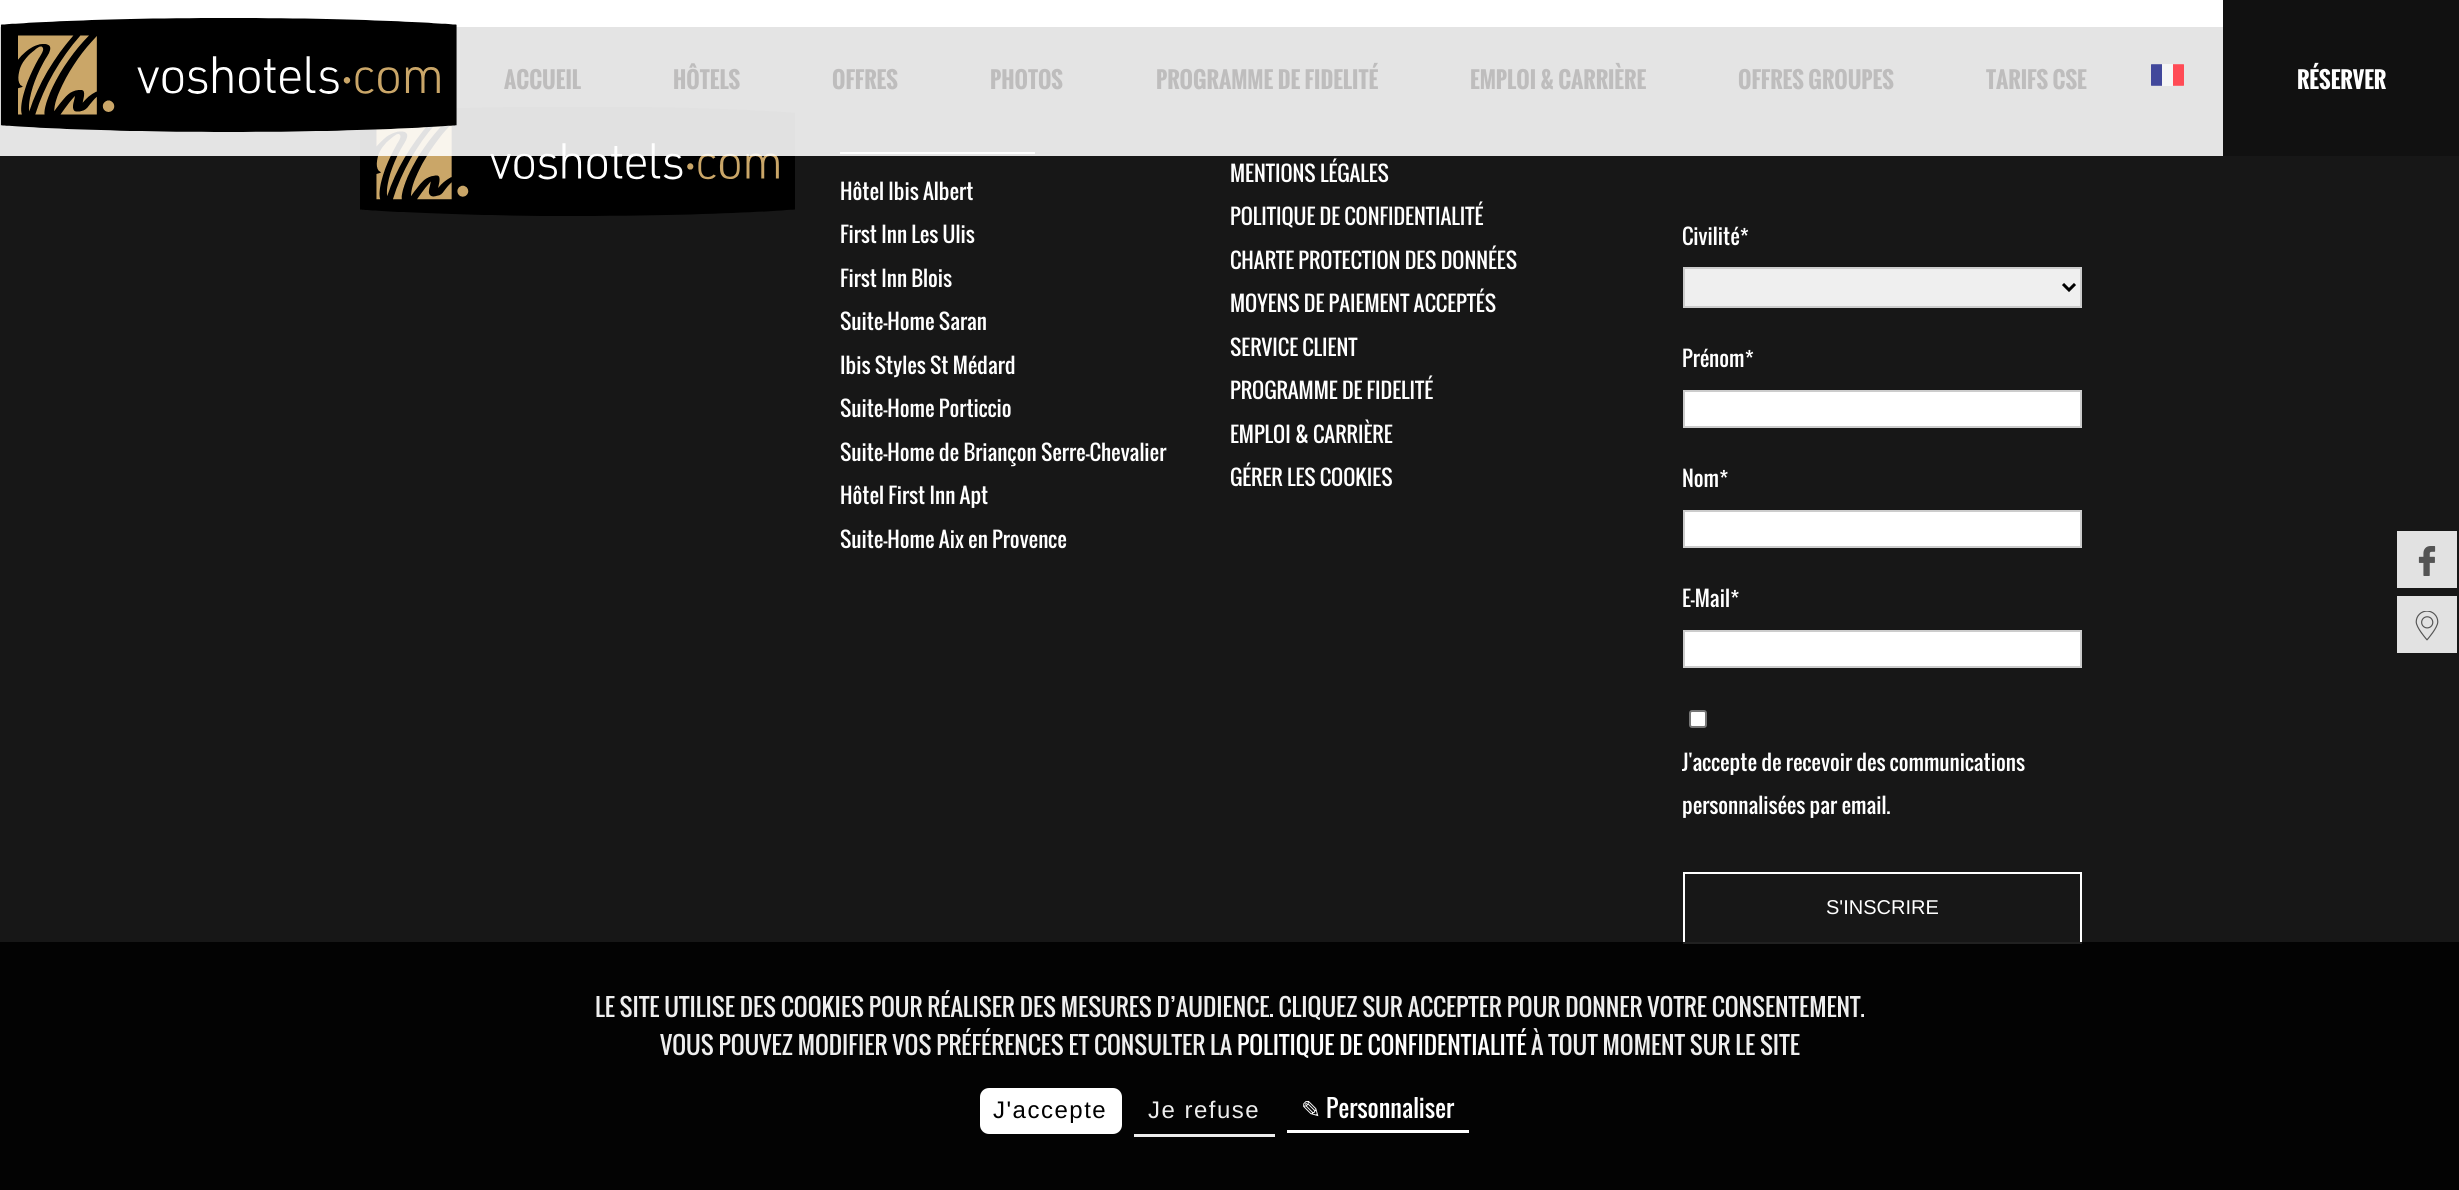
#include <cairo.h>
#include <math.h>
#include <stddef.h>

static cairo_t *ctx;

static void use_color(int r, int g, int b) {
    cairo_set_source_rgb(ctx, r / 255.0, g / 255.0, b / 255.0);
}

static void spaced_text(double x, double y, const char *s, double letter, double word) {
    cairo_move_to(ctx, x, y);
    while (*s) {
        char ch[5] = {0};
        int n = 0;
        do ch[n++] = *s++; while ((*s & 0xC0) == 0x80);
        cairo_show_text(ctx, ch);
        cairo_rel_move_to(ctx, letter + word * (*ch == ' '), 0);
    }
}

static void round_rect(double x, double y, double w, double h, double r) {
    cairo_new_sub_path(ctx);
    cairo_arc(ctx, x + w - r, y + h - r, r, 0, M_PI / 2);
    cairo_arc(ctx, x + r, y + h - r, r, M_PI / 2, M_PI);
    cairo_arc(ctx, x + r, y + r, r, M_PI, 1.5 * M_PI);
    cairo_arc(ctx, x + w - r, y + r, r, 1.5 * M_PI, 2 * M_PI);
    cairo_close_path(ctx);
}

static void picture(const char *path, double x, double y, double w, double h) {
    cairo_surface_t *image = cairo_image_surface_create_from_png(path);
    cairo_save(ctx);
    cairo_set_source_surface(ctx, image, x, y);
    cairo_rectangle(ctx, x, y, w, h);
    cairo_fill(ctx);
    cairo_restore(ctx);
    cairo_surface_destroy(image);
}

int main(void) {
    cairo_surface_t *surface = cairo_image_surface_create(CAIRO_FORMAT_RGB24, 2459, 1190);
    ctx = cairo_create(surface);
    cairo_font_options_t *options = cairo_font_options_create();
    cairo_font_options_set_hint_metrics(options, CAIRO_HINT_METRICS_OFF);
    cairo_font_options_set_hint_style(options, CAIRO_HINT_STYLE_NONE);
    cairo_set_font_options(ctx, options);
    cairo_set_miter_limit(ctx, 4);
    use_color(255, 255, 255);
    cairo_paint(ctx);
    use_color(23, 23, 23);
    cairo_rectangle(ctx, 0, 27, 2459, 1163);
    cairo_fill(ctx);
    picture("img3.png", 360, 107, 435, 109);
    use_color(255, 255, 255);
    cairo_rectangle(ctx, 840, 152, 195, 2);
    cairo_fill(ctx);
    cairo_set_source_rgba(ctx, 1, 1, 1, 0.88);
    cairo_rectangle(ctx, 0, 27, 2223, 129);
    cairo_fill(ctx);
    picture("img1.png", 0, 18, 457, 114);
    cairo_select_font_face(ctx, "Oswald", CAIRO_FONT_SLANT_NORMAL, CAIRO_FONT_WEIGHT_BOLD);
    cairo_set_font_size(ctx, 22.5);
    use_color(190, 189, 189);
    cairo_move_to(ctx, 504, 89);
    cairo_show_text(ctx, "ACCUEIL");
    cairo_move_to(ctx, 673, 89);
    cairo_show_text(ctx, "HÔTELS");
    cairo_move_to(ctx, 832, 89);
    cairo_show_text(ctx, "OFFRES");
    cairo_move_to(ctx, 990, 89);
    cairo_show_text(ctx, "PHOTOS");
    cairo_move_to(ctx, 1156, 89);
    cairo_show_text(ctx, "PROGRAMME DE FIDELITÉ");
    cairo_move_to(ctx, 1470, 89);
    cairo_show_text(ctx, "EMPLOI & CARRIÈRE");
    cairo_move_to(ctx, 1738, 89);
    cairo_show_text(ctx, "OFFRES GROUPES");
    cairo_move_to(ctx, 1986, 89);
    cairo_show_text(ctx, "TARIFS CSE");
    picture("img2.png", 2151, 64, 33, 22);
    use_color(17, 17, 17);
    cairo_rectangle(ctx, 2223, 0, 236, 156);
    cairo_fill(ctx);
    use_color(255, 255, 255);
    cairo_move_to(ctx, 2297, 89);
    cairo_show_text(ctx, "RÉSERVER");
    cairo_select_font_face(ctx, "Oswald", CAIRO_FONT_SLANT_NORMAL, CAIRO_FONT_WEIGHT_NORMAL);
    cairo_set_font_size(ctx, 21);
    cairo_move_to(ctx, 840, 200);
    cairo_show_text(ctx, "Hôtel Ibis Albert");
    cairo_move_to(ctx, 840, 243);
    cairo_show_text(ctx, "First Inn Les Ulis");
    cairo_move_to(ctx, 840, 287);
    cairo_show_text(ctx, "First Inn Blois");
    cairo_move_to(ctx, 840, 330);
    cairo_show_text(ctx, "Suite-Home Saran");
    cairo_move_to(ctx, 840, 374);
    cairo_show_text(ctx, "Ibis Styles St Médard");
    cairo_move_to(ctx, 840, 417);
    cairo_show_text(ctx, "Suite-Home Porticcio");
    cairo_move_to(ctx, 840, 461);
    cairo_show_text(ctx, "Suite-Home de Briançon Serre-Chevalier");
    cairo_move_to(ctx, 840, 504);
    cairo_show_text(ctx, "Hôtel First Inn Apt");
    cairo_move_to(ctx, 840, 548);
    cairo_show_text(ctx, "Suite-Home Aix en Provence");
    cairo_move_to(ctx, 1230, 182);
    cairo_show_text(ctx, "MENTIONS LÉGALES");
    cairo_move_to(ctx, 1230, 225);
    cairo_show_text(ctx, "POLITIQUE DE CONFIDENTIALITÉ");
    cairo_move_to(ctx, 1230, 269);
    cairo_show_text(ctx, "CHARTE PROTECTION DES DONNÉES");
    cairo_move_to(ctx, 1230, 312);
    cairo_show_text(ctx, "MOYENS DE PAIEMENT ACCEPTÉS");
    cairo_move_to(ctx, 1230, 356);
    cairo_show_text(ctx, "SERVICE CLIENT");
    cairo_move_to(ctx, 1230, 399);
    cairo_show_text(ctx, "PROGRAMME DE FIDELITÉ");
    cairo_move_to(ctx, 1230, 443);
    cairo_show_text(ctx, "EMPLOI & CARRIÈRE");
    cairo_move_to(ctx, 1230, 486);
    cairo_show_text(ctx, "GÉRER LES COOKIES");
    cairo_move_to(ctx, 1682, 245);
    cairo_show_text(ctx, "Civilité*");
    use_color(239, 239, 239);
    cairo_rectangle(ctx, 1684, 268, 397, 39);
    cairo_fill_preserve(ctx);
    use_color(204, 204, 204);
    cairo_stroke(ctx);
    cairo_new_path(ctx);
    cairo_move_to(ctx, 2063, 284);
    cairo_line_to(ctx, 2069, 290);
    cairo_line_to(ctx, 2075, 284);
    use_color(0, 0, 0);
    cairo_set_line_width(ctx, 3);
    cairo_stroke(ctx);
    use_color(255, 255, 255);
    cairo_move_to(ctx, 1682, 367);
    cairo_show_text(ctx, "Prénom*");
    cairo_rectangle(ctx, 1684, 391, 397, 36);
    cairo_fill_preserve(ctx);
    use_color(204, 204, 204);
    cairo_set_line_width(ctx, 2);
    cairo_stroke(ctx);
    use_color(255, 255, 255);
    cairo_move_to(ctx, 1682, 487);
    cairo_show_text(ctx, "Nom*");
    cairo_rectangle(ctx, 1684, 511, 397, 36);
    cairo_fill_preserve(ctx);
    use_color(204, 204, 204);
    cairo_stroke(ctx);
    use_color(255, 255, 255);
    cairo_move_to(ctx, 1682, 607);
    cairo_show_text(ctx, "E-Mail*");
    cairo_rectangle(ctx, 1684, 631, 397, 36);
    cairo_fill_preserve(ctx);
    use_color(204, 204, 204);
    cairo_stroke(ctx);
    use_color(255, 255, 255);
    round_rect(1690, 711, 16, 16, 2);
    cairo_fill_preserve(ctx);
    use_color(118, 118, 118);
    cairo_stroke(ctx);
    use_color(255, 255, 255);
    cairo_move_to(ctx, 1682, 771);
    cairo_show_text(ctx, "J'accepte de recevoir des communications");
    cairo_move_to(ctx, 1682, 814);
    cairo_show_text(ctx, "personnalisées par email.");
    cairo_rectangle(ctx, 1684, 873, 397, 70);
    cairo_stroke(ctx);
    cairo_select_font_face(ctx, "Liberation Sans", CAIRO_FONT_SLANT_NORMAL, CAIRO_FONT_WEIGHT_NORMAL);
    cairo_set_font_size(ctx, 20);
    cairo_move_to(ctx, 1826, 914);
    cairo_show_text(ctx, "S'INSCRIRE");
    use_color(226, 226, 226);
    cairo_rectangle(ctx, 2397, 531, 60, 57);
    cairo_fill(ctx);
    picture("img4.png", 2418, 546, 18, 30);
    cairo_rectangle(ctx, 2397, 596, 60, 57);
    cairo_fill(ctx);
    picture("img5.png", 2415, 611, 24, 30);
    cairo_set_source_rgba(ctx, 0, 0, 0, 0.87);
    cairo_rectangle(ctx, 0, 942, 2459, 248);
    cairo_fill(ctx);
    cairo_select_font_face(ctx, "Oswald", CAIRO_FONT_SLANT_NORMAL, CAIRO_FONT_WEIGHT_NORMAL);
    cairo_set_font_size(ctx, 24);
    use_color(238, 238, 238);
    cairo_move_to(ctx, 595, 1017);
    cairo_show_text(ctx, "LE SITE UTILISE DES COOKIES POUR RÉALISER DES MESURES D’AUDIENCE. CLIQUEZ SUR ACCEPTER POUR DONNER VOTRE CONSENTEMENT.");
    cairo_move_to(ctx, 660, 1055);
    cairo_show_text(ctx, "VOUS POUVEZ MODIFIER VOS PRÉFÉRENCES ET CONSULTER LA");
    use_color(255, 255, 255);
    cairo_move_to(ctx, 1237, 1055);
    cairo_show_text(ctx, "POLITIQUE DE CONFIDENTIALITÉ");
    use_color(238, 238, 238);
    cairo_move_to(ctx, 1531, 1055);
    cairo_show_text(ctx, "À TOUT MOMENT SUR LE SITE");
    use_color(255, 255, 255);
    round_rect(980, 1088, 142, 46, 9);
    cairo_fill(ctx);
    cairo_select_font_face(ctx, "Liberation Sans", CAIRO_FONT_SLANT_NORMAL, CAIRO_FONT_WEIGHT_NORMAL);
    use_color(0, 0, 0);
    spaced_text(993, 1118, "J'accepte", 1.5, 0);
    use_color(238, 238, 238);
    cairo_rectangle(ctx, 1134, 1134, 141, 3);
    cairo_fill(ctx);
    spaced_text(1148, 1118, "Je refuse", 1.5, 0);
    use_color(255, 255, 255);
    cairo_rectangle(ctx, 1287, 1130, 182, 3);
    cairo_fill(ctx);
    cairo_select_font_face(ctx, "DejaVu Sans", CAIRO_FONT_SLANT_NORMAL, CAIRO_FONT_WEIGHT_NORMAL);
    cairo_move_to(ctx, 1301, 1118);
    cairo_show_text(ctx, "✎");
    cairo_select_font_face(ctx, "Oswald", CAIRO_FONT_SLANT_NORMAL, CAIRO_FONT_WEIGHT_NORMAL);
    cairo_move_to(ctx, 1326, 1118);
    cairo_show_text(ctx, "Personnaliser");
    cairo_surface_write_to_png(surface, "result.png");
    cairo_font_options_destroy(options);
    cairo_destroy(ctx);
    cairo_surface_destroy(surface);
    return 0;
}
